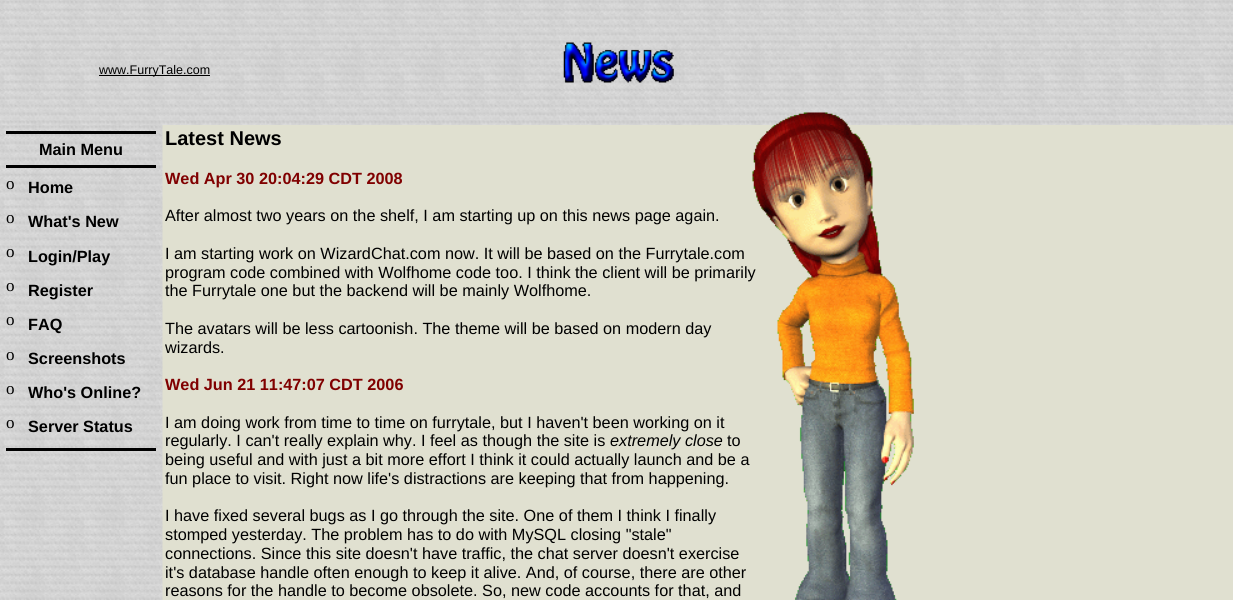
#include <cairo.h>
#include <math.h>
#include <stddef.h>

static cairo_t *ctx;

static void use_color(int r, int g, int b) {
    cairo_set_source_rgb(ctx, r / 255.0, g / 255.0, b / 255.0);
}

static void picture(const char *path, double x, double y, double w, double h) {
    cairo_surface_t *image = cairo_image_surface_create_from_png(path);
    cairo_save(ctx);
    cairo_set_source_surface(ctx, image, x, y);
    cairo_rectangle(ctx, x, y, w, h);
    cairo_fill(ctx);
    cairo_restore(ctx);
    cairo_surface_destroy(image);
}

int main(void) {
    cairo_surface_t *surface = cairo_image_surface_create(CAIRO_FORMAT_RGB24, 1233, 600);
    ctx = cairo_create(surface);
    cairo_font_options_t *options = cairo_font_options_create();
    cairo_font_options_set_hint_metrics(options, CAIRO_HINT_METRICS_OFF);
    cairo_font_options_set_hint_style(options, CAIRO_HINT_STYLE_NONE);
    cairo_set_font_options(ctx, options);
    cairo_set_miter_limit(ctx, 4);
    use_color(224, 224, 208);
    cairo_paint(ctx);
    picture("img1.png", 0, 0, 1233, 125);
    use_color(0, 0, 0);
    cairo_rectangle(ctx, 99, 75, 111, 1);
    cairo_fill(ctx);
    cairo_select_font_face(ctx, "Liberation Sans", CAIRO_FONT_SLANT_NORMAL, CAIRO_FONT_WEIGHT_NORMAL);
    cairo_set_font_size(ctx, 12.5);
    cairo_move_to(ctx, 99, 74);
    cairo_show_text(ctx, "www.FurryTale.com");
    picture("img2.png", 563, 42, 111, 41);
    picture("img3.png", 0, 125, 163, 475);
    cairo_rectangle(ctx, 6, 131, 150, 3);
    cairo_fill(ctx);
    cairo_select_font_face(ctx, "Liberation Sans", CAIRO_FONT_SLANT_NORMAL, CAIRO_FONT_WEIGHT_BOLD);
    cairo_set_font_size(ctx, 16.25);
    cairo_move_to(ctx, 39, 155);
    cairo_show_text(ctx, "Main Menu");
    cairo_rectangle(ctx, 6, 165, 150, 3);
    cairo_fill(ctx);
    cairo_select_font_face(ctx, "Liberation Serif", CAIRO_FONT_SLANT_NORMAL, CAIRO_FONT_WEIGHT_NORMAL);
    cairo_set_font_size(ctx, 17);
    cairo_move_to(ctx, 6, 189);
    cairo_show_text(ctx, "o");
    cairo_select_font_face(ctx, "Liberation Sans", CAIRO_FONT_SLANT_NORMAL, CAIRO_FONT_WEIGHT_BOLD);
    cairo_set_font_size(ctx, 16.25);
    cairo_move_to(ctx, 28, 193);
    cairo_show_text(ctx, "Home");
    cairo_select_font_face(ctx, "Liberation Serif", CAIRO_FONT_SLANT_NORMAL, CAIRO_FONT_WEIGHT_NORMAL);
    cairo_set_font_size(ctx, 17);
    cairo_move_to(ctx, 6, 223);
    cairo_show_text(ctx, "o");
    cairo_select_font_face(ctx, "Liberation Sans", CAIRO_FONT_SLANT_NORMAL, CAIRO_FONT_WEIGHT_BOLD);
    cairo_set_font_size(ctx, 16.25);
    cairo_move_to(ctx, 28, 227);
    cairo_show_text(ctx, "What's New");
    cairo_select_font_face(ctx, "Liberation Serif", CAIRO_FONT_SLANT_NORMAL, CAIRO_FONT_WEIGHT_NORMAL);
    cairo_set_font_size(ctx, 17);
    cairo_move_to(ctx, 6, 257);
    cairo_show_text(ctx, "o");
    cairo_select_font_face(ctx, "Liberation Sans", CAIRO_FONT_SLANT_NORMAL, CAIRO_FONT_WEIGHT_BOLD);
    cairo_set_font_size(ctx, 16.25);
    cairo_move_to(ctx, 28, 262);
    cairo_show_text(ctx, "Login/Play");
    cairo_select_font_face(ctx, "Liberation Serif", CAIRO_FONT_SLANT_NORMAL, CAIRO_FONT_WEIGHT_NORMAL);
    cairo_set_font_size(ctx, 17);
    cairo_move_to(ctx, 6, 291);
    cairo_show_text(ctx, "o");
    cairo_select_font_face(ctx, "Liberation Sans", CAIRO_FONT_SLANT_NORMAL, CAIRO_FONT_WEIGHT_BOLD);
    cairo_set_font_size(ctx, 16.25);
    cairo_move_to(ctx, 28, 296);
    cairo_show_text(ctx, "Register");
    cairo_select_font_face(ctx, "Liberation Serif", CAIRO_FONT_SLANT_NORMAL, CAIRO_FONT_WEIGHT_NORMAL);
    cairo_set_font_size(ctx, 17);
    cairo_move_to(ctx, 6, 325);
    cairo_show_text(ctx, "o");
    cairo_select_font_face(ctx, "Liberation Sans", CAIRO_FONT_SLANT_NORMAL, CAIRO_FONT_WEIGHT_BOLD);
    cairo_set_font_size(ctx, 16.25);
    cairo_move_to(ctx, 28, 330);
    cairo_show_text(ctx, "FAQ");
    cairo_select_font_face(ctx, "Liberation Serif", CAIRO_FONT_SLANT_NORMAL, CAIRO_FONT_WEIGHT_NORMAL);
    cairo_set_font_size(ctx, 17);
    cairo_move_to(ctx, 6, 360);
    cairo_show_text(ctx, "o");
    cairo_select_font_face(ctx, "Liberation Sans", CAIRO_FONT_SLANT_NORMAL, CAIRO_FONT_WEIGHT_BOLD);
    cairo_set_font_size(ctx, 16.25);
    cairo_move_to(ctx, 28, 364);
    cairo_show_text(ctx, "Screenshots");
    cairo_select_font_face(ctx, "Liberation Serif", CAIRO_FONT_SLANT_NORMAL, CAIRO_FONT_WEIGHT_NORMAL);
    cairo_set_font_size(ctx, 17);
    cairo_move_to(ctx, 6, 394);
    cairo_show_text(ctx, "o");
    cairo_select_font_face(ctx, "Liberation Sans", CAIRO_FONT_SLANT_NORMAL, CAIRO_FONT_WEIGHT_BOLD);
    cairo_set_font_size(ctx, 16.25);
    cairo_move_to(ctx, 28, 398);
    cairo_show_text(ctx, "Who's Online?");
    cairo_select_font_face(ctx, "Liberation Serif", CAIRO_FONT_SLANT_NORMAL, CAIRO_FONT_WEIGHT_NORMAL);
    cairo_set_font_size(ctx, 17);
    cairo_move_to(ctx, 6, 428);
    cairo_show_text(ctx, "o");
    cairo_select_font_face(ctx, "Liberation Sans", CAIRO_FONT_SLANT_NORMAL, CAIRO_FONT_WEIGHT_BOLD);
    cairo_set_font_size(ctx, 16.25);
    cairo_move_to(ctx, 28, 432);
    cairo_show_text(ctx, "Server Status");
    cairo_rectangle(ctx, 6, 448, 150, 3);
    cairo_fill(ctx);
    cairo_set_font_size(ctx, 20);
    cairo_move_to(ctx, 165, 145);
    cairo_show_text(ctx, "Latest News");
    cairo_set_font_size(ctx, 16.25);
    use_color(128, 0, 0);
    cairo_move_to(ctx, 165, 184);
    cairo_show_text(ctx, "Wed Apr 30 20:04:29 CDT 2008");
    cairo_select_font_face(ctx, "Liberation Sans", CAIRO_FONT_SLANT_NORMAL, CAIRO_FONT_WEIGHT_NORMAL);
    use_color(0, 0, 0);
    cairo_move_to(ctx, 165, 221);
    cairo_show_text(ctx, "After almost two years on the shelf, I am starting up on this news page again.");
    cairo_move_to(ctx, 165, 259);
    cairo_show_text(ctx, "I am starting work on WizardChat.com now. It will be based on the Furrytale.com");
    cairo_move_to(ctx, 165, 278);
    cairo_show_text(ctx, "program code combined with Wolfhome code too. I think the client will be primarily");
    cairo_move_to(ctx, 165, 296);
    cairo_show_text(ctx, "the Furrytale one but the backend will be mainly Wolfhome.");
    cairo_move_to(ctx, 165, 334);
    cairo_show_text(ctx, "The avatars will be less cartoonish. The theme will be based on modern day");
    cairo_move_to(ctx, 165, 353);
    cairo_show_text(ctx, "wizards.");
    cairo_select_font_face(ctx, "Liberation Sans", CAIRO_FONT_SLANT_NORMAL, CAIRO_FONT_WEIGHT_BOLD);
    use_color(128, 0, 0);
    cairo_move_to(ctx, 165, 390);
    cairo_show_text(ctx, "Wed Jun 21 11:47:07 CDT 2006");
    cairo_select_font_face(ctx, "Liberation Sans", CAIRO_FONT_SLANT_NORMAL, CAIRO_FONT_WEIGHT_NORMAL);
    use_color(0, 0, 0);
    cairo_move_to(ctx, 165, 428);
    cairo_show_text(ctx, "I am doing work from time to time on furrytale, but I haven't been working on it");
    cairo_move_to(ctx, 165, 446);
    cairo_show_text(ctx, "regularly. I can't really explain why. I feel as though the site is");
    cairo_select_font_face(ctx, "Liberation Sans", CAIRO_FONT_SLANT_ITALIC, CAIRO_FONT_WEIGHT_NORMAL);
    cairo_move_to(ctx, 610, 446);
    cairo_show_text(ctx, "extremely close");
    cairo_select_font_face(ctx, "Liberation Sans", CAIRO_FONT_SLANT_NORMAL, CAIRO_FONT_WEIGHT_NORMAL);
    cairo_move_to(ctx, 727, 446);
    cairo_show_text(ctx, "to");
    cairo_move_to(ctx, 165, 465);
    cairo_show_text(ctx, "being useful and with just a bit more effort I think it could actually launch and be a");
    cairo_move_to(ctx, 165, 484);
    cairo_show_text(ctx, "fun place to visit. Right now life's distractions are keeping that from happening.");
    cairo_move_to(ctx, 165, 521);
    cairo_show_text(ctx, "I have fixed several bugs as I go through the site. One of them I think I finally");
    cairo_move_to(ctx, 165, 540);
    cairo_show_text(ctx, "stomped yesterday. The problem has to do with MySQL closing \"stale\"");
    cairo_move_to(ctx, 165, 559);
    cairo_show_text(ctx, "connections. Since this site doesn't have traffic, the chat server doesn't exercise");
    cairo_move_to(ctx, 165, 578);
    cairo_show_text(ctx, "it's database handle often enough to keep it alive. And, of course, there are other");
    cairo_move_to(ctx, 165, 596);
    cairo_show_text(ctx, "reasons for the handle to become obsolete. So, new code accounts for that, and");
    picture("img4.png", 752, 112, 162, 488);
    cairo_surface_write_to_png(surface, "result.png");
    cairo_font_options_destroy(options);
    cairo_destroy(ctx);
    cairo_surface_destroy(surface);
    return 0;
}
